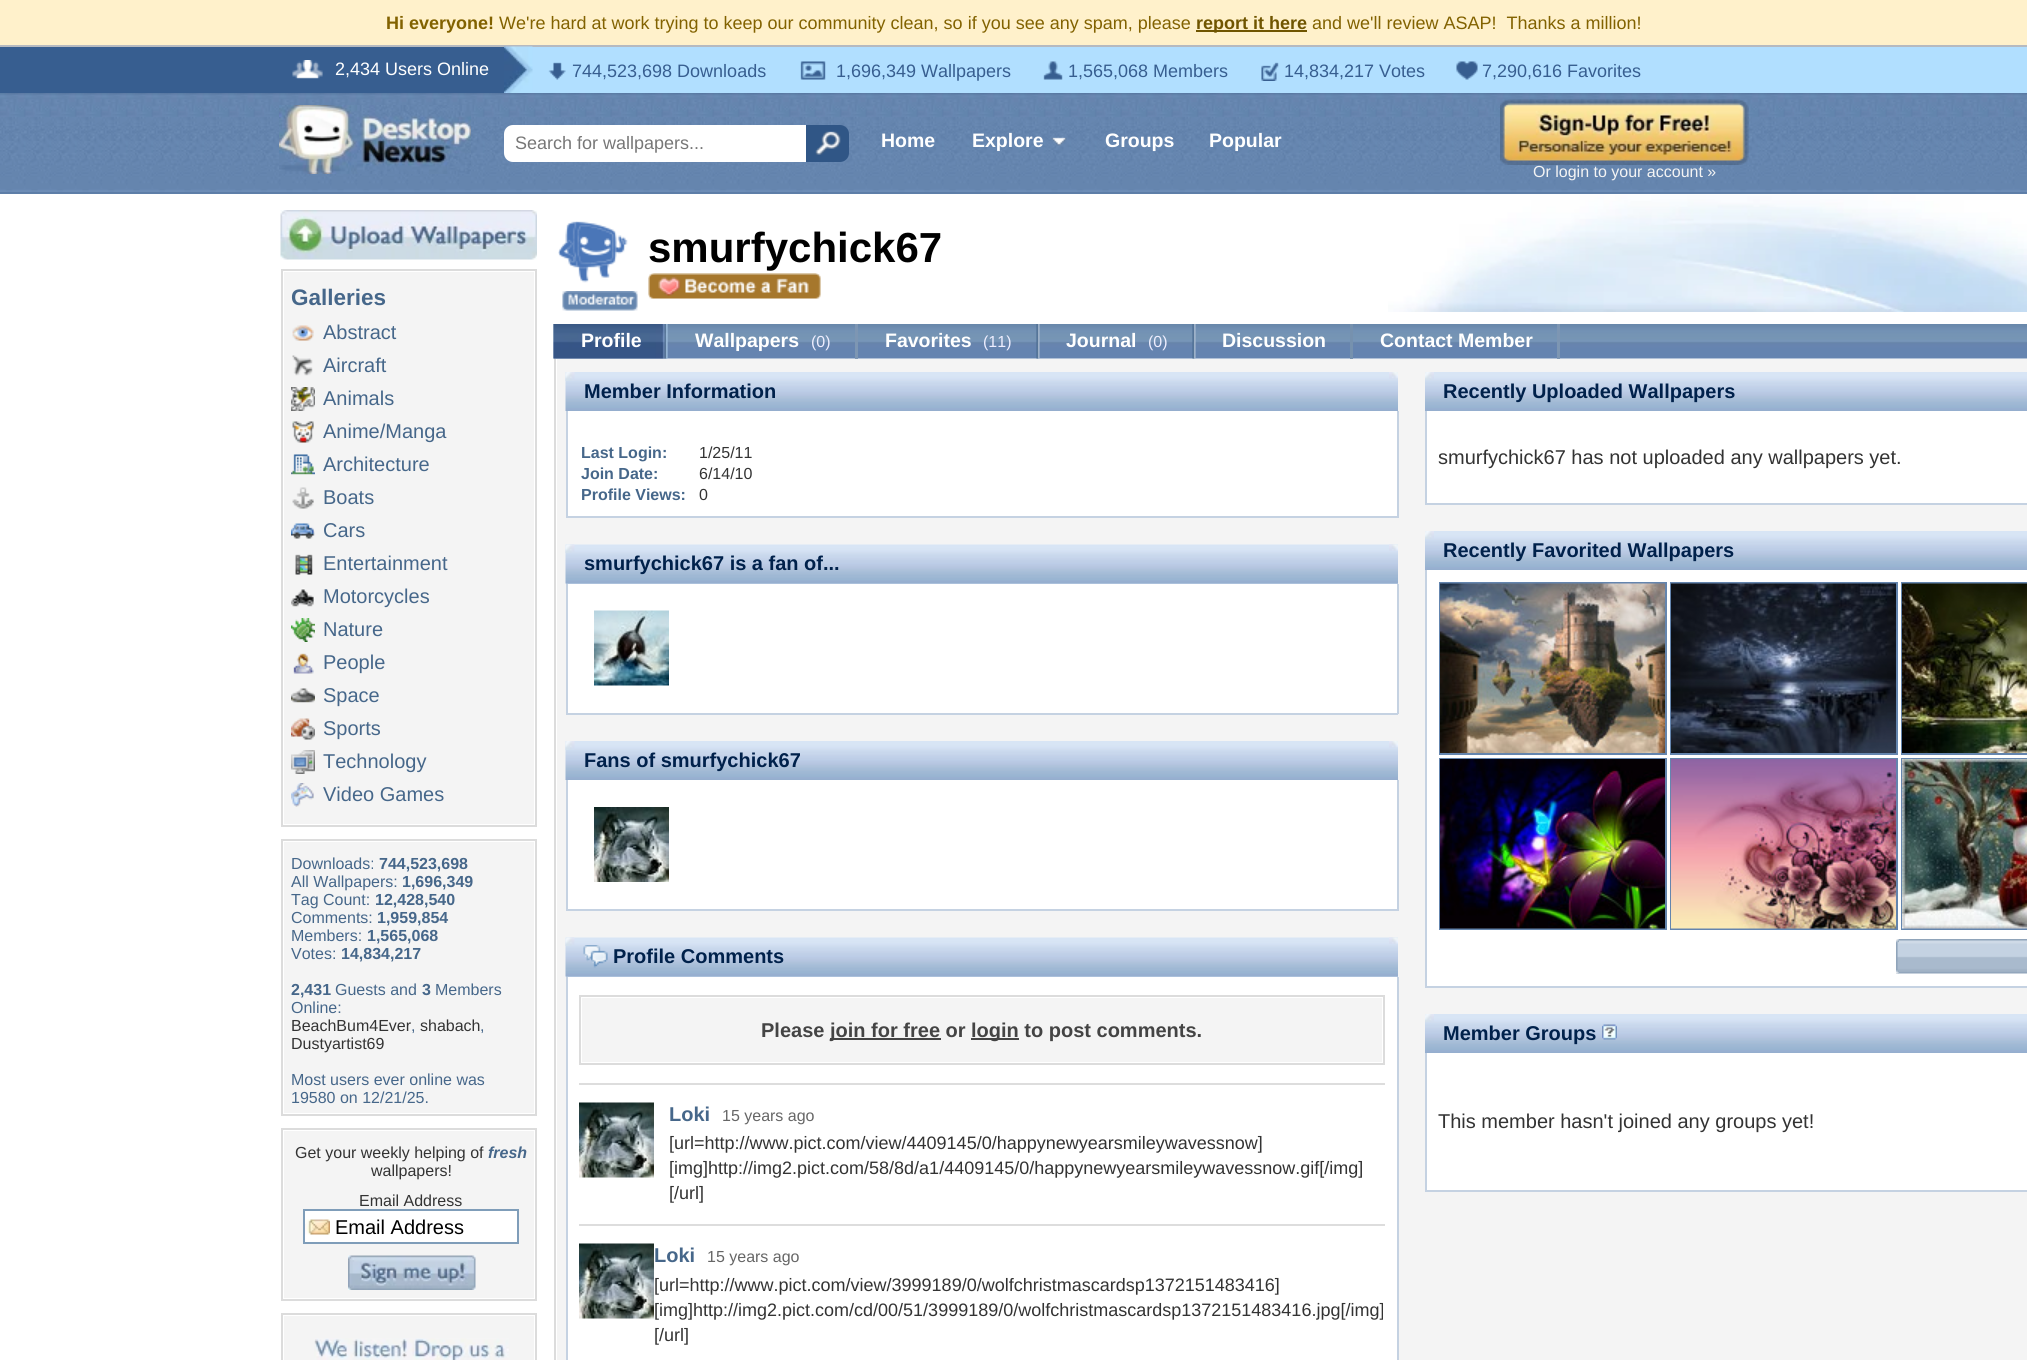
#include <cairo.h>
#include <math.h>
#include <stddef.h>

static cairo_t *ctx;

static void use_color(int r, int g, int b) {
    cairo_set_source_rgb(ctx, r / 255.0, g / 255.0, b / 255.0);
}

static void picture(const char *path, double x, double y, double w, double h) {
    cairo_surface_t *image = cairo_image_surface_create_from_png(path);
    cairo_save(ctx);
    cairo_set_source_surface(ctx, image, x, y);
    cairo_rectangle(ctx, x, y, w, h);
    cairo_fill(ctx);
    cairo_restore(ctx);
    cairo_surface_destroy(image);
}

int main(void) {
    cairo_surface_t *surface = cairo_image_surface_create(CAIRO_FORMAT_RGB24, 2027, 1360);
    ctx = cairo_create(surface);
    cairo_font_options_t *options = cairo_font_options_create();
    cairo_font_options_set_hint_metrics(options, CAIRO_HINT_METRICS_OFF);
    cairo_font_options_set_hint_style(options, CAIRO_HINT_STYLE_NONE);
    cairo_set_font_options(ctx, options);
    cairo_set_miter_limit(ctx, 4);
    use_color(255, 255, 255);
    cairo_paint(ctx);
    use_color(255, 241, 203);
    cairo_rectangle(ctx, 0, 0, 2027, 45);
    cairo_fill(ctx);
    cairo_select_font_face(ctx, "Liberation Sans", CAIRO_FONT_SLANT_NORMAL, CAIRO_FONT_WEIGHT_BOLD);
    cairo_set_font_size(ctx, 18);
    use_color(130, 98, 0);
    cairo_move_to(ctx, 386, 29);
    cairo_show_text(ctx, "Hi everyone!");
    cairo_select_font_face(ctx, "Liberation Sans", CAIRO_FONT_SLANT_NORMAL, CAIRO_FONT_WEIGHT_NORMAL);
    cairo_move_to(ctx, 499, 29);
    cairo_show_text(ctx, "We're hard at work trying to keep our community clean, so if you see any spam, please");
    use_color(112, 85, 0);
    cairo_rectangle(ctx, 1196, 30, 111, 2);
    cairo_fill(ctx);
    cairo_select_font_face(ctx, "Liberation Sans", CAIRO_FONT_SLANT_NORMAL, CAIRO_FONT_WEIGHT_BOLD);
    cairo_move_to(ctx, 1196, 29);
    cairo_show_text(ctx, "report it here");
    cairo_select_font_face(ctx, "Liberation Sans", CAIRO_FONT_SLANT_NORMAL, CAIRO_FONT_WEIGHT_NORMAL);
    use_color(130, 98, 0);
    cairo_move_to(ctx, 1312, 29);
    cairo_show_text(ctx, "and we'll review ASAP!  Thanks a million!");
    use_color(177, 223, 255);
    cairo_rectangle(ctx, 532, 47, 1495, 46);
    cairo_fill(ctx);
    use_color(182, 186, 192);
    cairo_rectangle(ctx, 0, 45, 2027, 2);
    cairo_fill(ctx);
    use_color(55, 94, 144);
    cairo_rectangle(ctx, 0, 47, 504, 46);
    cairo_fill(ctx);
    picture("img1.png", 292, 60, 31, 19);
    use_color(255, 255, 255);
    cairo_move_to(ctx, 335, 75);
    cairo_show_text(ctx, "2,434 Users Online");
    picture("img2.png", 504, 46, 29, 47);
    picture("img3.png", 548, 62, 18, 18);
    use_color(55, 94, 144);
    cairo_move_to(ctx, 572, 77);
    cairo_show_text(ctx, "744,523,698 Downloads");
    picture("img4.png", 800, 61, 26, 19);
    cairo_move_to(ctx, 836, 77);
    cairo_show_text(ctx, "1,696,349 Wallpapers");
    picture("img5.png", 1043, 61, 20, 19);
    cairo_move_to(ctx, 1068, 77);
    cairo_show_text(ctx, "1,565,068 Members");
    picture("img6.png", 1261, 62, 18, 19);
    cairo_move_to(ctx, 1284, 77);
    cairo_show_text(ctx, "14,834,217 Votes");
    picture("img7.png", 1456, 61, 22, 19);
    cairo_move_to(ctx, 1482, 77);
    cairo_show_text(ctx, "7,290,616 Favorites");
    use_color(99, 132, 173);
    cairo_rectangle(ctx, 0, 193, 2027, 1);
    cairo_fill(ctx);
    picture("img8.png", 0, 93, 2027, 101);
    picture("img9.png", 279, 105, 192, 69);
    use_color(255, 255, 255);
    cairo_new_path(ctx);
    cairo_move_to(ctx, 513, 125);
    cairo_line_to(ctx, 830, 125);
    cairo_line_to(ctx, 830, 162);
    cairo_line_to(ctx, 513, 162);
    cairo_curve_to(ctx, 508, 162, 504, 158, 504, 153);
    cairo_line_to(ctx, 504, 134);
    cairo_curve_to(ctx, 504, 129, 508, 125, 513, 125);
    cairo_close_path(ctx);
    cairo_fill(ctx);
    use_color(119, 119, 119);
    cairo_move_to(ctx, 515, 149);
    cairo_show_text(ctx, "Search for wallpapers...");
    use_color(48, 86, 134);
    cairo_new_path(ctx);
    cairo_move_to(ctx, 806, 125);
    cairo_line_to(ctx, 840, 125);
    cairo_curve_to(ctx, 845, 125, 849, 129, 849, 134);
    cairo_line_to(ctx, 849, 153);
    cairo_curve_to(ctx, 849, 158, 845, 162, 840, 162);
    cairo_line_to(ctx, 806, 162);
    cairo_close_path(ctx);
    cairo_fill(ctx);
    picture("img10.png", 815, 131, 26, 24);
    cairo_select_font_face(ctx, "Liberation Sans", CAIRO_FONT_SLANT_NORMAL, CAIRO_FONT_WEIGHT_BOLD);
    cairo_set_font_size(ctx, 19.5);
    use_color(255, 255, 255);
    cairo_move_to(ctx, 881, 147);
    cairo_show_text(ctx, "Home");
    cairo_move_to(ctx, 972, 147);
    cairo_show_text(ctx, "Explore");
    picture("img11.png", 1051, 137, 16, 9);
    cairo_move_to(ctx, 1105, 147);
    cairo_show_text(ctx, "Groups");
    cairo_move_to(ctx, 1209, 147);
    cairo_show_text(ctx, "Popular");
    picture("img12.png", 1500, 99, 249, 66);
    cairo_select_font_face(ctx, "Liberation Sans", CAIRO_FONT_SLANT_NORMAL, CAIRO_FONT_WEIGHT_NORMAL);
    cairo_set_font_size(ctx, 16);
    use_color(244, 244, 244);
    cairo_move_to(ctx, 1533, 177);
    cairo_show_text(ctx, "Or login to your account »");
    picture("img13.png", 280, 210, 257, 50);
    cairo_rectangle(ctx, 282, 270, 254, 556);
    use_color(220, 220, 220);
    cairo_stroke(ctx);
    use_color(244, 244, 244);
    cairo_rectangle(ctx, 284, 272, 250, 552);
    cairo_fill(ctx);
    cairo_select_font_face(ctx, "Liberation Sans", CAIRO_FONT_SLANT_NORMAL, CAIRO_FONT_WEIGHT_BOLD);
    cairo_set_font_size(ctx, 22.5);
    use_color(70, 103, 138);
    cairo_move_to(ctx, 291, 305);
    cairo_show_text(ctx, "Galleries");
    picture("img14.png", 292, 325, 22, 16);
    cairo_select_font_face(ctx, "Liberation Sans", CAIRO_FONT_SLANT_NORMAL, CAIRO_FONT_WEIGHT_NORMAL);
    cairo_set_font_size(ctx, 20);
    cairo_move_to(ctx, 323, 339);
    cairo_show_text(ctx, "Abstract");
    picture("img15.png", 292, 355, 21, 21);
    cairo_move_to(ctx, 323, 372);
    cairo_show_text(ctx, "Aircraft");
    picture("img16.png", 291, 387, 24, 24);
    cairo_move_to(ctx, 323, 405);
    cairo_show_text(ctx, "Animals");
    picture("img17.png", 292, 421, 22, 22);
    cairo_move_to(ctx, 323, 438);
    cairo_show_text(ctx, "Anime/Manga");
    picture("img18.png", 291, 454, 24, 21);
    cairo_move_to(ctx, 323, 471);
    cairo_show_text(ctx, "Architecture");
    picture("img19.png", 292, 487, 22, 22);
    cairo_move_to(ctx, 323, 504);
    cairo_show_text(ctx, "Boats");
    picture("img20.png", 291, 523, 24, 16);
    cairo_move_to(ctx, 323, 537);
    cairo_show_text(ctx, "Cars");
    picture("img21.png", 295, 554, 18, 21);
    cairo_move_to(ctx, 323, 570);
    cairo_show_text(ctx, "Entertainment");
    picture("img22.png", 291, 588, 24, 19);
    cairo_move_to(ctx, 323, 603);
    cairo_show_text(ctx, "Motorcycles");
    picture("img23.png", 291, 618, 24, 24);
    cairo_move_to(ctx, 323, 636);
    cairo_show_text(ctx, "Nature");
    picture("img24.png", 293, 653, 21, 21);
    cairo_move_to(ctx, 323, 669);
    cairo_show_text(ctx, "People");
    picture("img25.png", 291, 688, 24, 15);
    cairo_move_to(ctx, 323, 702);
    cairo_show_text(ctx, "Space");
    picture("img26.png", 291, 718, 24, 22);
    cairo_move_to(ctx, 323, 735);
    cairo_show_text(ctx, "Sports");
    picture("img27.png", 291, 750, 24, 24);
    cairo_move_to(ctx, 323, 768);
    cairo_show_text(ctx, "Technology");
    picture("img28.png", 291, 783, 23, 24);
    cairo_move_to(ctx, 323, 801);
    cairo_show_text(ctx, "Video Games");
    cairo_rectangle(ctx, 282, 840, 254, 275);
    use_color(220, 220, 220);
    cairo_stroke(ctx);
    use_color(244, 244, 244);
    cairo_rectangle(ctx, 284, 842, 250, 271);
    cairo_fill(ctx);
    cairo_set_font_size(ctx, 16);
    use_color(70, 103, 138);
    cairo_move_to(ctx, 291, 869);
    cairo_show_text(ctx, "Downloads:");
    cairo_select_font_face(ctx, "Liberation Sans", CAIRO_FONT_SLANT_NORMAL, CAIRO_FONT_WEIGHT_BOLD);
    cairo_move_to(ctx, 379, 869);
    cairo_show_text(ctx, "744,523,698");
    cairo_select_font_face(ctx, "Liberation Sans", CAIRO_FONT_SLANT_NORMAL, CAIRO_FONT_WEIGHT_NORMAL);
    cairo_move_to(ctx, 291, 887);
    cairo_show_text(ctx, "All Wallpapers:");
    cairo_select_font_face(ctx, "Liberation Sans", CAIRO_FONT_SLANT_NORMAL, CAIRO_FONT_WEIGHT_BOLD);
    cairo_move_to(ctx, 402, 887);
    cairo_show_text(ctx, "1,696,349");
    cairo_select_font_face(ctx, "Liberation Sans", CAIRO_FONT_SLANT_NORMAL, CAIRO_FONT_WEIGHT_NORMAL);
    cairo_move_to(ctx, 291, 905);
    cairo_show_text(ctx, "Tag Count:");
    cairo_select_font_face(ctx, "Liberation Sans", CAIRO_FONT_SLANT_NORMAL, CAIRO_FONT_WEIGHT_BOLD);
    cairo_move_to(ctx, 375, 905);
    cairo_show_text(ctx, "12,428,540");
    cairo_select_font_face(ctx, "Liberation Sans", CAIRO_FONT_SLANT_NORMAL, CAIRO_FONT_WEIGHT_NORMAL);
    cairo_move_to(ctx, 291, 923);
    cairo_show_text(ctx, "Comments:");
    cairo_select_font_face(ctx, "Liberation Sans", CAIRO_FONT_SLANT_NORMAL, CAIRO_FONT_WEIGHT_BOLD);
    cairo_move_to(ctx, 377, 923);
    cairo_show_text(ctx, "1,959,854");
    cairo_select_font_face(ctx, "Liberation Sans", CAIRO_FONT_SLANT_NORMAL, CAIRO_FONT_WEIGHT_NORMAL);
    cairo_move_to(ctx, 291, 941);
    cairo_show_text(ctx, "Members:");
    cairo_select_font_face(ctx, "Liberation Sans", CAIRO_FONT_SLANT_NORMAL, CAIRO_FONT_WEIGHT_BOLD);
    cairo_move_to(ctx, 367, 941);
    cairo_show_text(ctx, "1,565,068");
    cairo_select_font_face(ctx, "Liberation Sans", CAIRO_FONT_SLANT_NORMAL, CAIRO_FONT_WEIGHT_NORMAL);
    cairo_move_to(ctx, 291, 959);
    cairo_show_text(ctx, "Votes:");
    cairo_select_font_face(ctx, "Liberation Sans", CAIRO_FONT_SLANT_NORMAL, CAIRO_FONT_WEIGHT_BOLD);
    cairo_move_to(ctx, 341, 959);
    cairo_show_text(ctx, "14,834,217");
    cairo_move_to(ctx, 291, 995);
    cairo_show_text(ctx, "2,431");
    cairo_select_font_face(ctx, "Liberation Sans", CAIRO_FONT_SLANT_NORMAL, CAIRO_FONT_WEIGHT_NORMAL);
    cairo_move_to(ctx, 335, 995);
    cairo_show_text(ctx, "Guests and");
    cairo_select_font_face(ctx, "Liberation Sans", CAIRO_FONT_SLANT_NORMAL, CAIRO_FONT_WEIGHT_BOLD);
    cairo_move_to(ctx, 422, 995);
    cairo_show_text(ctx, "3");
    cairo_select_font_face(ctx, "Liberation Sans", CAIRO_FONT_SLANT_NORMAL, CAIRO_FONT_WEIGHT_NORMAL);
    cairo_move_to(ctx, 435, 995);
    cairo_show_text(ctx, "Members");
    cairo_move_to(ctx, 291, 1013);
    cairo_show_text(ctx, "Online:");
    use_color(51, 51, 51);
    cairo_move_to(ctx, 291, 1031);
    cairo_show_text(ctx, "BeachBum4Ever");
    use_color(70, 103, 138);
    cairo_move_to(ctx, 411, 1031);
    cairo_show_text(ctx, ",");
    use_color(51, 51, 51);
    cairo_move_to(ctx, 420, 1031);
    cairo_show_text(ctx, "shabach");
    use_color(70, 103, 138);
    cairo_move_to(ctx, 480, 1031);
    cairo_show_text(ctx, ",");
    use_color(51, 51, 51);
    cairo_move_to(ctx, 291, 1049);
    cairo_show_text(ctx, "Dustyartist69");
    use_color(70, 103, 138);
    cairo_move_to(ctx, 291, 1085);
    cairo_show_text(ctx, "Most users ever online was");
    cairo_move_to(ctx, 291, 1103);
    cairo_show_text(ctx, "19580 on 12/21/25.");
    cairo_rectangle(ctx, 282, 1129, 254, 171);
    use_color(220, 220, 220);
    cairo_stroke(ctx);
    use_color(244, 244, 244);
    cairo_rectangle(ctx, 284, 1131, 250, 167);
    cairo_fill(ctx);
    use_color(51, 51, 51);
    cairo_move_to(ctx, 295, 1158);
    cairo_show_text(ctx, "Get your weekly helping of");
    cairo_select_font_face(ctx, "Liberation Sans", CAIRO_FONT_SLANT_ITALIC, CAIRO_FONT_WEIGHT_BOLD);
    use_color(70, 103, 138);
    cairo_move_to(ctx, 488, 1158);
    cairo_show_text(ctx, "fresh");
    cairo_select_font_face(ctx, "Liberation Sans", CAIRO_FONT_SLANT_NORMAL, CAIRO_FONT_WEIGHT_NORMAL);
    use_color(51, 51, 51);
    cairo_move_to(ctx, 371, 1176);
    cairo_show_text(ctx, "wallpapers!");
    cairo_move_to(ctx, 359, 1206);
    cairo_show_text(ctx, "Email Address");
    use_color(255, 255, 255);
    cairo_rectangle(ctx, 305, 1211, 212, 31);
    cairo_fill(ctx);
    picture("img29.png", 305, 1219, 25, 16);
    cairo_rectangle(ctx, 304, 1210, 214, 33);
    use_color(127, 157, 185);
    cairo_stroke(ctx);
    cairo_set_font_size(ctx, 20);
    use_color(0, 0, 0);
    cairo_move_to(ctx, 335, 1234);
    cairo_show_text(ctx, "Email Address");
    picture("img30.png", 348, 1255, 128, 35);
    cairo_rectangle(ctx, 282, 1314, 254, 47);
    use_color(220, 220, 220);
    cairo_stroke(ctx);
    use_color(244, 244, 244);
    cairo_rectangle(ctx, 284, 1316, 250, 44);
    cairo_fill(ctx);
    picture("img31.png", 314, 1338, 195, 22);
    picture("img32.png", 558, 221, 70, 62);
    picture("img33.png", 562, 291, 76, 20);
    cairo_select_font_face(ctx, "Liberation Sans", CAIRO_FONT_SLANT_NORMAL, CAIRO_FONT_WEIGHT_BOLD);
    cairo_set_font_size(ctx, 42);
    use_color(0, 0, 0);
    cairo_move_to(ctx, 648, 262);
    cairo_show_text(ctx, "smurfychick67");
    picture("img34.png", 1388, 195, 639, 117);
    picture("img35.png", 648, 273, 173, 26);
    picture("img36.png", 553, 324, 1474, 35);
    picture("img37.png", 553, 324, 115, 35);
    cairo_set_font_size(ctx, 19.5);
    use_color(255, 255, 255);
    cairo_move_to(ctx, 581, 347);
    cairo_show_text(ctx, "Profile");
    use_color(125, 150, 179);
    cairo_rectangle(ctx, 855, 324, 3, 35);
    cairo_fill(ctx);
    use_color(255, 255, 255);
    cairo_move_to(ctx, 695, 347);
    cairo_show_text(ctx, "Wallpapers");
    cairo_select_font_face(ctx, "Liberation Sans", CAIRO_FONT_SLANT_NORMAL, CAIRO_FONT_WEIGHT_NORMAL);
    cairo_set_font_size(ctx, 16);
    use_color(238, 238, 255);
    cairo_move_to(ctx, 811, 347);
    cairo_show_text(ctx, "(0)");
    picture("img38.png", 1036, 324, 4, 35);
    cairo_select_font_face(ctx, "Liberation Sans", CAIRO_FONT_SLANT_NORMAL, CAIRO_FONT_WEIGHT_BOLD);
    cairo_set_font_size(ctx, 19.5);
    use_color(255, 255, 255);
    cairo_move_to(ctx, 885, 347);
    cairo_show_text(ctx, "Favorites");
    cairo_select_font_face(ctx, "Liberation Sans", CAIRO_FONT_SLANT_NORMAL, CAIRO_FONT_WEIGHT_NORMAL);
    cairo_set_font_size(ctx, 16);
    use_color(238, 238, 255);
    cairo_move_to(ctx, 983, 347);
    cairo_show_text(ctx, "(11)");
    picture("img38.png", 1192, 324, 4, 35);
    cairo_select_font_face(ctx, "Liberation Sans", CAIRO_FONT_SLANT_NORMAL, CAIRO_FONT_WEIGHT_BOLD);
    cairo_set_font_size(ctx, 19.5);
    use_color(255, 255, 255);
    cairo_move_to(ctx, 1066, 347);
    cairo_show_text(ctx, "Journal");
    cairo_select_font_face(ctx, "Liberation Sans", CAIRO_FONT_SLANT_NORMAL, CAIRO_FONT_WEIGHT_NORMAL);
    cairo_set_font_size(ctx, 16);
    use_color(238, 238, 255);
    cairo_move_to(ctx, 1148, 347);
    cairo_show_text(ctx, "(0)");
    use_color(118, 145, 174);
    cairo_rectangle(ctx, 1350, 324, 3, 35);
    cairo_fill(ctx);
    cairo_select_font_face(ctx, "Liberation Sans", CAIRO_FONT_SLANT_NORMAL, CAIRO_FONT_WEIGHT_BOLD);
    cairo_set_font_size(ctx, 19.5);
    use_color(255, 255, 255);
    cairo_move_to(ctx, 1222, 347);
    cairo_show_text(ctx, "Discussion");
    use_color(125, 150, 179);
    cairo_rectangle(ctx, 1557, 324, 3, 35);
    cairo_fill(ctx);
    use_color(255, 255, 255);
    cairo_move_to(ctx, 1380, 347);
    cairo_show_text(ctx, "Contact Member");
    use_color(220, 220, 220);
    cairo_rectangle(ctx, 554, 359, 2, 1001);
    cairo_fill(ctx);
    use_color(244, 244, 244);
    cairo_rectangle(ctx, 557, 359, 1470, 1001);
    cairo_fill(ctx);
    picture("img39.png", 565, 372, 833, 39);
    picture("img40.png", 565, 372, 10, 9);
    picture("img41.png", 1389, 372, 9, 7);
    cairo_set_font_size(ctx, 20);
    use_color(0, 33, 75);
    cairo_move_to(ctx, 584, 398);
    cairo_show_text(ctx, "Member Information");
    use_color(255, 255, 255);
    cairo_rectangle(ctx, 568, 411, 829, 105);
    cairo_fill(ctx);
    use_color(197, 210, 226);
    cairo_rectangle(ctx, 1397, 411, 2, 107);
    cairo_fill(ctx);
    cairo_rectangle(ctx, 566, 516, 832, 2);
    cairo_fill(ctx);
    cairo_rectangle(ctx, 566, 411, 2, 107);
    cairo_fill(ctx);
    cairo_set_font_size(ctx, 16);
    use_color(70, 103, 138);
    cairo_move_to(ctx, 581, 458);
    cairo_show_text(ctx, "Last Login:");
    cairo_select_font_face(ctx, "Liberation Sans", CAIRO_FONT_SLANT_NORMAL, CAIRO_FONT_WEIGHT_NORMAL);
    use_color(51, 51, 51);
    cairo_move_to(ctx, 699, 458);
    cairo_show_text(ctx, "1/25/11");
    cairo_select_font_face(ctx, "Liberation Sans", CAIRO_FONT_SLANT_NORMAL, CAIRO_FONT_WEIGHT_BOLD);
    use_color(70, 103, 138);
    cairo_move_to(ctx, 581, 479);
    cairo_show_text(ctx, "Join Date:");
    cairo_select_font_face(ctx, "Liberation Sans", CAIRO_FONT_SLANT_NORMAL, CAIRO_FONT_WEIGHT_NORMAL);
    use_color(51, 51, 51);
    cairo_move_to(ctx, 699, 479);
    cairo_show_text(ctx, "6/14/10");
    cairo_select_font_face(ctx, "Liberation Sans", CAIRO_FONT_SLANT_NORMAL, CAIRO_FONT_WEIGHT_BOLD);
    use_color(70, 103, 138);
    cairo_move_to(ctx, 581, 500);
    cairo_show_text(ctx, "Profile Views:");
    cairo_select_font_face(ctx, "Liberation Sans", CAIRO_FONT_SLANT_NORMAL, CAIRO_FONT_WEIGHT_NORMAL);
    use_color(51, 51, 51);
    cairo_move_to(ctx, 699, 500);
    cairo_show_text(ctx, "0");
    use_color(193, 211, 232);
    cairo_rectangle(ctx, 566, 583, 832, 1);
    cairo_fill(ctx);
    picture("img42.png", 565, 544, 833, 40);
    picture("img43.png", 565, 544, 10, 9);
    picture("img44.png", 1389, 544, 9, 7);
    cairo_select_font_face(ctx, "Liberation Sans", CAIRO_FONT_SLANT_NORMAL, CAIRO_FONT_WEIGHT_BOLD);
    cairo_set_font_size(ctx, 20);
    use_color(0, 33, 75);
    cairo_move_to(ctx, 584, 570);
    cairo_show_text(ctx, "smurfychick67 is a fan of...");
    use_color(255, 255, 255);
    cairo_rectangle(ctx, 568, 584, 829, 129);
    cairo_fill(ctx);
    use_color(197, 210, 226);
    cairo_rectangle(ctx, 1397, 584, 2, 130);
    cairo_fill(ctx);
    cairo_rectangle(ctx, 566, 713, 832, 2);
    cairo_fill(ctx);
    cairo_rectangle(ctx, 566, 584, 2, 130);
    cairo_fill(ctx);
    picture("img45.png", 594, 610, 75, 76);
    picture("img39.png", 565, 741, 833, 39);
    picture("img40.png", 565, 741, 10, 9);
    picture("img41.png", 1389, 741, 9, 7);
    use_color(0, 33, 75);
    cairo_move_to(ctx, 584, 767);
    cairo_show_text(ctx, "Fans of smurfychick67");
    use_color(255, 255, 255);
    cairo_rectangle(ctx, 568, 780, 829, 129);
    cairo_fill(ctx);
    use_color(197, 210, 226);
    cairo_rectangle(ctx, 1397, 780, 2, 131);
    cairo_fill(ctx);
    cairo_rectangle(ctx, 566, 909, 832, 2);
    cairo_fill(ctx);
    cairo_rectangle(ctx, 566, 780, 2, 131);
    cairo_fill(ctx);
    picture("img46.png", 594, 807, 75, 75);
    use_color(193, 211, 232);
    cairo_rectangle(ctx, 566, 976, 832, 1);
    cairo_fill(ctx);
    picture("img42.png", 565, 937, 833, 40);
    picture("img43.png", 565, 937, 10, 9);
    picture("img44.png", 1389, 937, 9, 7);
    picture("img47.png", 583, 945, 25, 23);
    use_color(0, 33, 75);
    cairo_move_to(ctx, 613, 963);
    cairo_show_text(ctx, "Profile Comments");
    use_color(255, 255, 255);
    cairo_rectangle(ctx, 568, 977, 829, 383);
    cairo_fill(ctx);
    use_color(197, 210, 226);
    cairo_rectangle(ctx, 1397, 977, 2, 383);
    cairo_fill(ctx);
    cairo_rectangle(ctx, 566, 977, 2, 383);
    cairo_fill(ctx);
    cairo_rectangle(ctx, 580, 996, 804, 68);
    use_color(220, 220, 220);
    cairo_stroke(ctx);
    use_color(244, 244, 244);
    cairo_rectangle(ctx, 582, 998, 800, 64);
    cairo_fill(ctx);
    use_color(68, 68, 68);
    cairo_move_to(ctx, 761, 1037);
    cairo_show_text(ctx, "Please");
    cairo_rectangle(ctx, 830, 1038, 111, 2);
    cairo_fill(ctx);
    cairo_move_to(ctx, 830, 1037);
    cairo_show_text(ctx, "join for free or");
    cairo_rectangle(ctx, 971, 1038, 48, 2);
    cairo_fill(ctx);
    cairo_move_to(ctx, 971, 1037);
    cairo_show_text(ctx, "login to post comments.");
    use_color(221, 221, 221);
    cairo_rectangle(ctx, 579, 1083, 806, 2);
    cairo_fill(ctx);
    picture("img48.png", 579, 1102, 75, 76);
    use_color(70, 103, 138);
    cairo_move_to(ctx, 669, 1121);
    cairo_show_text(ctx, "Loki");
    cairo_select_font_face(ctx, "Liberation Sans", CAIRO_FONT_SLANT_NORMAL, CAIRO_FONT_WEIGHT_NORMAL);
    cairo_set_font_size(ctx, 16);
    use_color(102, 102, 102);
    cairo_move_to(ctx, 722, 1121);
    cairo_show_text(ctx, "15 years ago");
    cairo_set_font_size(ctx, 18);
    use_color(51, 51, 51);
    cairo_move_to(ctx, 669, 1149);
    cairo_show_text(ctx, "[url=http://www.pict.com/view/4409145/0/happynewyearsmileywavessnow]");
    cairo_move_to(ctx, 669, 1174);
    cairo_show_text(ctx, "[img]http://img2.pict.com/58/8d/a1/4409145/0/happynewyearsmileywavessnow.gif[/img]");
    cairo_move_to(ctx, 669, 1199);
    cairo_show_text(ctx, "[/url]");
    use_color(221, 221, 221);
    cairo_rectangle(ctx, 579, 1224, 806, 2);
    cairo_fill(ctx);
    picture("img48.png", 579, 1243, 75, 76);
    cairo_select_font_face(ctx, "Liberation Sans", CAIRO_FONT_SLANT_NORMAL, CAIRO_FONT_WEIGHT_BOLD);
    cairo_set_font_size(ctx, 20);
    use_color(70, 103, 138);
    cairo_move_to(ctx, 654, 1262);
    cairo_show_text(ctx, "Loki");
    cairo_select_font_face(ctx, "Liberation Sans", CAIRO_FONT_SLANT_NORMAL, CAIRO_FONT_WEIGHT_NORMAL);
    cairo_set_font_size(ctx, 16);
    use_color(102, 102, 102);
    cairo_move_to(ctx, 707, 1262);
    cairo_show_text(ctx, "15 years ago");
    cairo_set_font_size(ctx, 18);
    use_color(51, 51, 51);
    cairo_move_to(ctx, 654, 1291);
    cairo_show_text(ctx, "[url=http://www.pict.com/view/3999189/0/wolfchristmascardsp1372151483416]");
    cairo_move_to(ctx, 654, 1316);
    cairo_show_text(ctx, "[img]http://img2.pict.com/cd/00/51/3999189/0/wolfchristmascardsp1372151483416.jpg[/img]");
    cairo_move_to(ctx, 654, 1341);
    cairo_show_text(ctx, "[/url]");
    picture("img49.png", 1425, 372, 602, 39);
    picture("img50.png", 1425, 372, 9, 8);
    cairo_select_font_face(ctx, "Liberation Sans", CAIRO_FONT_SLANT_NORMAL, CAIRO_FONT_WEIGHT_BOLD);
    cairo_set_font_size(ctx, 20);
    use_color(0, 33, 75);
    cairo_move_to(ctx, 1443, 398);
    cairo_show_text(ctx, "Recently Uploaded Wallpapers");
    use_color(255, 255, 255);
    cairo_rectangle(ctx, 1427, 411, 600, 92);
    cairo_fill(ctx);
    use_color(197, 210, 226);
    cairo_rectangle(ctx, 1425, 503, 602, 2);
    cairo_fill(ctx);
    cairo_rectangle(ctx, 1425, 411, 2, 93);
    cairo_fill(ctx);
    cairo_select_font_face(ctx, "Liberation Sans", CAIRO_FONT_SLANT_NORMAL, CAIRO_FONT_WEIGHT_NORMAL);
    use_color(51, 51, 51);
    cairo_move_to(ctx, 1438, 464);
    cairo_show_text(ctx, "smurfychick67 has not uploaded any wallpapers yet.");
    picture("img49.png", 1425, 531, 602, 39);
    picture("img50.png", 1425, 531, 9, 8);
    cairo_select_font_face(ctx, "Liberation Sans", CAIRO_FONT_SLANT_NORMAL, CAIRO_FONT_WEIGHT_BOLD);
    use_color(0, 33, 75);
    cairo_move_to(ctx, 1443, 557);
    cairo_show_text(ctx, "Recently Favorited Wallpapers");
    use_color(255, 255, 255);
    cairo_rectangle(ctx, 1427, 570, 600, 416);
    cairo_fill(ctx);
    use_color(197, 210, 226);
    cairo_rectangle(ctx, 1425, 986, 602, 2);
    cairo_fill(ctx);
    cairo_rectangle(ctx, 1425, 570, 2, 417);
    cairo_fill(ctx);
    cairo_rectangle(ctx, 1440, 583, 226, 171);
    use_color(100, 133, 174);
    cairo_stroke(ctx);
    picture("img51.png", 1440, 583, 225, 170);
    cairo_rectangle(ctx, 1671, 583, 226, 171);
    cairo_stroke(ctx);
    picture("img52.png", 1671, 583, 225, 170);
    cairo_rectangle(ctx, 1902, 583, 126, 171);
    cairo_stroke(ctx);
    picture("img53.png", 1902, 583, 125, 170);
    cairo_rectangle(ctx, 1440, 759, 226, 170);
    cairo_stroke(ctx);
    picture("img54.png", 1440, 759, 225, 170);
    cairo_rectangle(ctx, 1671, 759, 226, 170);
    cairo_stroke(ctx);
    picture("img55.png", 1671, 759, 225, 170);
    cairo_rectangle(ctx, 1902, 759, 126, 170);
    cairo_stroke(ctx);
    picture("img56.png", 1902, 759, 125, 170);
    picture("img57.png", 1896, 939, 131, 35);
    picture("img58.png", 1896, 939, 3, 35);
    picture("img49.png", 1425, 1014, 602, 39);
    picture("img50.png", 1425, 1014, 9, 8);
    use_color(0, 33, 75);
    cairo_move_to(ctx, 1443, 1040);
    cairo_show_text(ctx, "Member Groups");
    picture("img59.png", 1602, 1024, 15, 16);
    use_color(255, 255, 255);
    cairo_rectangle(ctx, 1427, 1053, 600, 137);
    cairo_fill(ctx);
    use_color(197, 210, 226);
    cairo_rectangle(ctx, 1425, 1190, 602, 2);
    cairo_fill(ctx);
    cairo_rectangle(ctx, 1425, 1053, 2, 138);
    cairo_fill(ctx);
    cairo_select_font_face(ctx, "Liberation Sans", CAIRO_FONT_SLANT_NORMAL, CAIRO_FONT_WEIGHT_NORMAL);
    use_color(51, 51, 51);
    cairo_move_to(ctx, 1438, 1128);
    cairo_show_text(ctx, "This member hasn't joined any groups yet!");
    cairo_surface_write_to_png(surface, "result.png");
    cairo_font_options_destroy(options);
    cairo_destroy(ctx);
    cairo_surface_destroy(surface);
    return 0;
}
